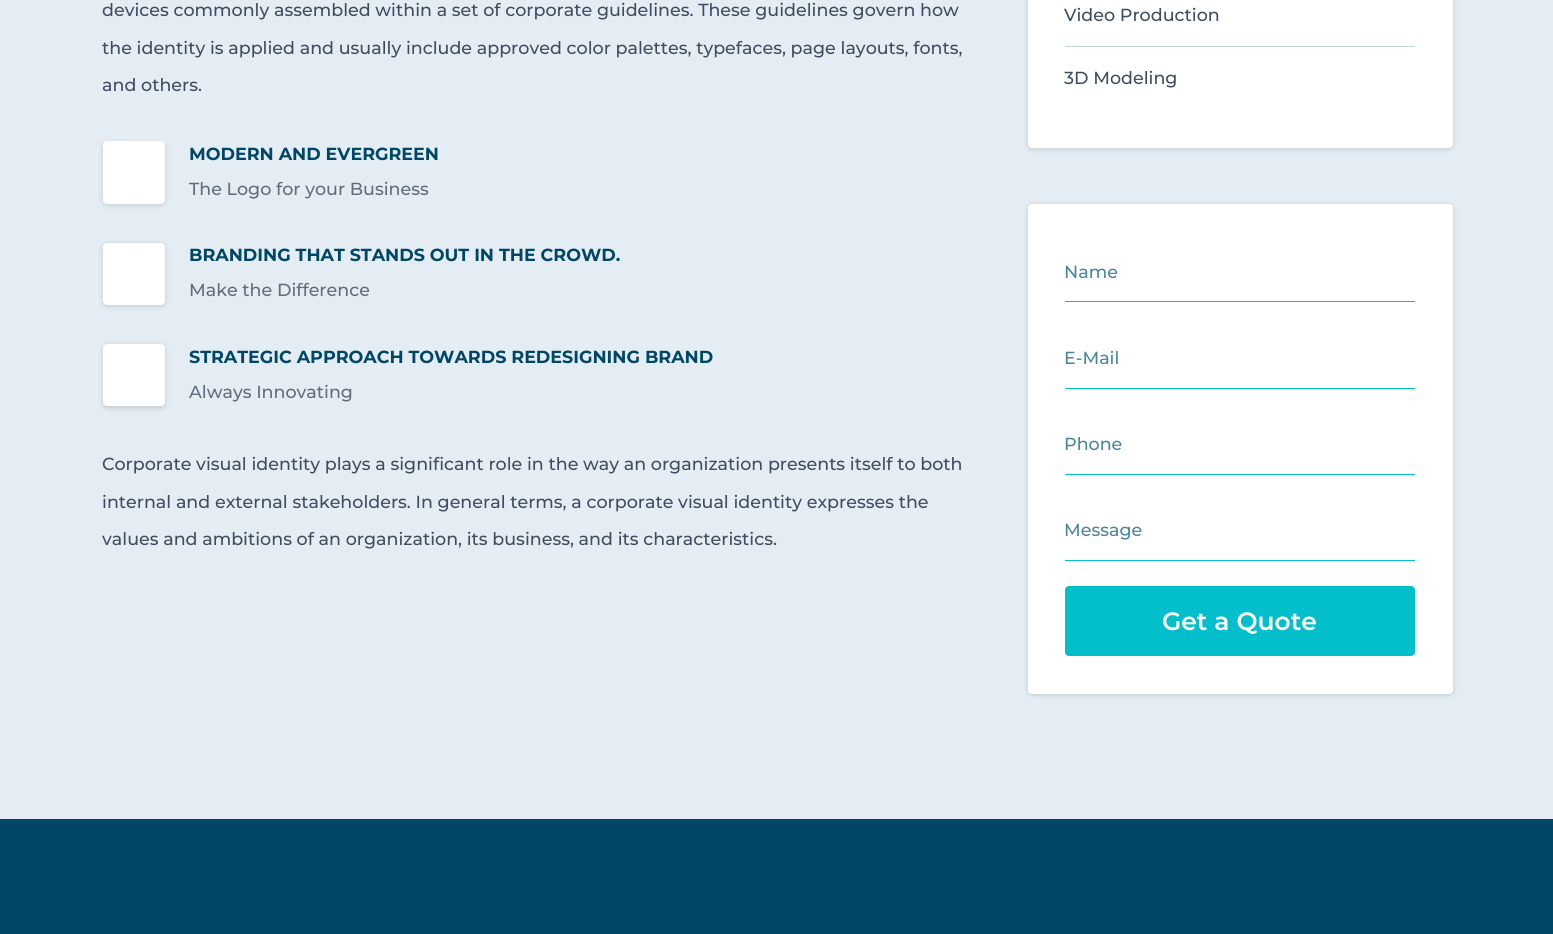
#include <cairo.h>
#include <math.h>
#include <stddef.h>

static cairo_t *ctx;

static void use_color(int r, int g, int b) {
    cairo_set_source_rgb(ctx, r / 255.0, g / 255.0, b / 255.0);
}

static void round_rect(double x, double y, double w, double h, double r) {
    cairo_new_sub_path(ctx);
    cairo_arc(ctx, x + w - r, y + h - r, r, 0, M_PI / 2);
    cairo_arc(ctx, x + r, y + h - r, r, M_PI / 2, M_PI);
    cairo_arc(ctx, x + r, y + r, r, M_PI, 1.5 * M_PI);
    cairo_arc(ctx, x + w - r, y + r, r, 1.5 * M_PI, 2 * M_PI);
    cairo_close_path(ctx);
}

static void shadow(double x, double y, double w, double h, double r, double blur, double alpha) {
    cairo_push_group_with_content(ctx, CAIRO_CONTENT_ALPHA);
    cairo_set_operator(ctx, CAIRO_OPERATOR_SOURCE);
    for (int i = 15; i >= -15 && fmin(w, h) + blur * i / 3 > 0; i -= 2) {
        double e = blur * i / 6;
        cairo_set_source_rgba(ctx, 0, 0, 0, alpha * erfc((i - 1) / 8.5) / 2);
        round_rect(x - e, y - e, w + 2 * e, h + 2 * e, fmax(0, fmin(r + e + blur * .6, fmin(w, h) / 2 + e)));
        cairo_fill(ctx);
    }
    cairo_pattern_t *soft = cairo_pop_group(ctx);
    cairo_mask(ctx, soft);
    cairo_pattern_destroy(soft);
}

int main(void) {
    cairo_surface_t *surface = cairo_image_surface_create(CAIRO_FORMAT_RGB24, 1553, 934);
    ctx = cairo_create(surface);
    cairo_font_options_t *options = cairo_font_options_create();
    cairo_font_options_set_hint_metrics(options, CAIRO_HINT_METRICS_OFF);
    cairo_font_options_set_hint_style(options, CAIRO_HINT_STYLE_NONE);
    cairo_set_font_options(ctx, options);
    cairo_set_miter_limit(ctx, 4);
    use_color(0, 71, 103);
    cairo_paint(ctx);
    use_color(228, 237, 243);
    cairo_rectangle(ctx, 0, 0, 1553, 819);
    cairo_fill(ctx);
    cairo_select_font_face(ctx, "Montserrat Medium", CAIRO_FONT_SLANT_NORMAL, CAIRO_FONT_WEIGHT_NORMAL);
    cairo_set_font_size(ctx, 17.5);
    use_color(64, 77, 96);
    cairo_move_to(ctx, 102, 16);
    cairo_show_text(ctx, "devices commonly assembled within a set of corporate guidelines. These guidelines govern how");
    cairo_move_to(ctx, 102, 54);
    cairo_show_text(ctx, "the identity is applied and usually include approved color palettes, typefaces, page layouts, fonts,");
    cairo_move_to(ctx, 102, 91);
    cairo_show_text(ctx, "and others.");
    use_color(0, 0, 0);
    shadow(103, 143, 62, 62, 4, 2.5, 0.15);
    use_color(255, 255, 255);
    round_rect(103, 141, 62, 63, 4);
    cairo_fill(ctx);
    cairo_select_font_face(ctx, "Montserrat", CAIRO_FONT_SLANT_NORMAL, CAIRO_FONT_WEIGHT_BOLD);
    use_color(0, 71, 103);
    cairo_move_to(ctx, 189, 160);
    cairo_show_text(ctx, "MODERN AND EVERGREEN");
    cairo_select_font_face(ctx, "Montserrat Medium", CAIRO_FONT_SLANT_NORMAL, CAIRO_FONT_WEIGHT_NORMAL);
    use_color(97, 109, 125);
    cairo_move_to(ctx, 189, 195);
    cairo_show_text(ctx, "The Logo for your Business");
    use_color(0, 0, 0);
    shadow(103, 244, 62, 62, 4, 2.5, 0.15);
    use_color(255, 255, 255);
    round_rect(103, 243, 62, 62, 4);
    cairo_fill(ctx);
    cairo_select_font_face(ctx, "Montserrat", CAIRO_FONT_SLANT_NORMAL, CAIRO_FONT_WEIGHT_BOLD);
    use_color(0, 71, 103);
    cairo_move_to(ctx, 189, 261);
    cairo_show_text(ctx, "BRANDING THAT STANDS OUT IN THE CROWD.");
    cairo_select_font_face(ctx, "Montserrat Medium", CAIRO_FONT_SLANT_NORMAL, CAIRO_FONT_WEIGHT_NORMAL);
    use_color(97, 109, 125);
    cairo_move_to(ctx, 189, 296);
    cairo_show_text(ctx, "Make the Difference");
    use_color(0, 0, 0);
    shadow(103, 345, 62, 63, 4, 2.5, 0.15);
    use_color(255, 255, 255);
    round_rect(103, 344, 62, 62, 4);
    cairo_fill(ctx);
    cairo_select_font_face(ctx, "Montserrat", CAIRO_FONT_SLANT_NORMAL, CAIRO_FONT_WEIGHT_BOLD);
    use_color(0, 71, 103);
    cairo_move_to(ctx, 189, 363);
    cairo_show_text(ctx, "STRATEGIC APPROACH TOWARDS REDESIGNING BRAND");
    cairo_select_font_face(ctx, "Montserrat Medium", CAIRO_FONT_SLANT_NORMAL, CAIRO_FONT_WEIGHT_NORMAL);
    use_color(97, 109, 125);
    cairo_move_to(ctx, 189, 398);
    cairo_show_text(ctx, "Always Innovating");
    use_color(64, 77, 96);
    cairo_move_to(ctx, 102, 470);
    cairo_show_text(ctx, "Corporate visual identity plays a significant role in the way an organization presents itself to both");
    cairo_move_to(ctx, 102, 508);
    cairo_show_text(ctx, "internal and external stakeholders. In general terms, a corporate visual identity expresses the");
    cairo_move_to(ctx, 102, 545);
    cairo_show_text(ctx, "values and ambitions of an organization, its business, and its characteristics.");
    use_color(0, 0, 0);
    shadow(1028, -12, 425, 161, 4, 2.5, 0.15);
    use_color(255, 255, 255);
    round_rect(1028, -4, 425, 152, 4);
    cairo_fill(ctx);
    use_color(194, 209, 217);
    cairo_rectangle(ctx, 1065, 46, 350, 1);
    cairo_fill(ctx);
    use_color(64, 77, 96);
    cairo_move_to(ctx, 1064, 21);
    cairo_show_text(ctx, "Video Production");
    cairo_move_to(ctx, 1064, 84);
    cairo_show_text(ctx, "3D Modeling");
    use_color(0, 0, 0);
    shadow(1028, 205, 425, 490, 4, 2.5, 0.15);
    use_color(255, 255, 255);
    round_rect(1028, 204, 425, 490, 4);
    cairo_fill(ctx);
    use_color(3, 191, 203);
    cairo_rectangle(ctx, 1065, 301, 350, 1);
    cairo_fill(ctx);
    use_color(75, 134, 161);
    cairo_move_to(ctx, 1064, 278);
    cairo_show_text(ctx, "Name");
    use_color(3, 191, 203);
    cairo_rectangle(ctx, 1065, 388, 350, 1);
    cairo_fill(ctx);
    use_color(75, 134, 161);
    cairo_move_to(ctx, 1064, 364);
    cairo_show_text(ctx, "E-Mail");
    use_color(3, 191, 203);
    cairo_rectangle(ctx, 1065, 474, 350, 1);
    cairo_fill(ctx);
    use_color(75, 134, 161);
    cairo_move_to(ctx, 1064, 450);
    cairo_show_text(ctx, "Phone");
    use_color(3, 191, 203);
    cairo_rectangle(ctx, 1065, 560, 350, 1);
    cairo_fill(ctx);
    use_color(75, 134, 161);
    cairo_move_to(ctx, 1064, 536);
    cairo_show_text(ctx, "Message");
    use_color(3, 191, 203);
    round_rect(1065.5, 586.5, 349, 69, 3.5);
    cairo_fill_preserve(ctx);
    cairo_set_line_width(ctx, 1);
    cairo_stroke(ctx);
    cairo_select_font_face(ctx, "Montserrat SemiBold", CAIRO_FONT_SLANT_NORMAL, CAIRO_FONT_WEIGHT_NORMAL);
    cairo_set_font_size(ctx, 25);
    use_color(255, 255, 255);
    cairo_move_to(ctx, 1162, 630);
    cairo_show_text(ctx, "Get a Quote");
    cairo_surface_write_to_png(surface, "result.png");
    cairo_font_options_destroy(options);
    cairo_destroy(ctx);
    cairo_surface_destroy(surface);
    return 0;
}
